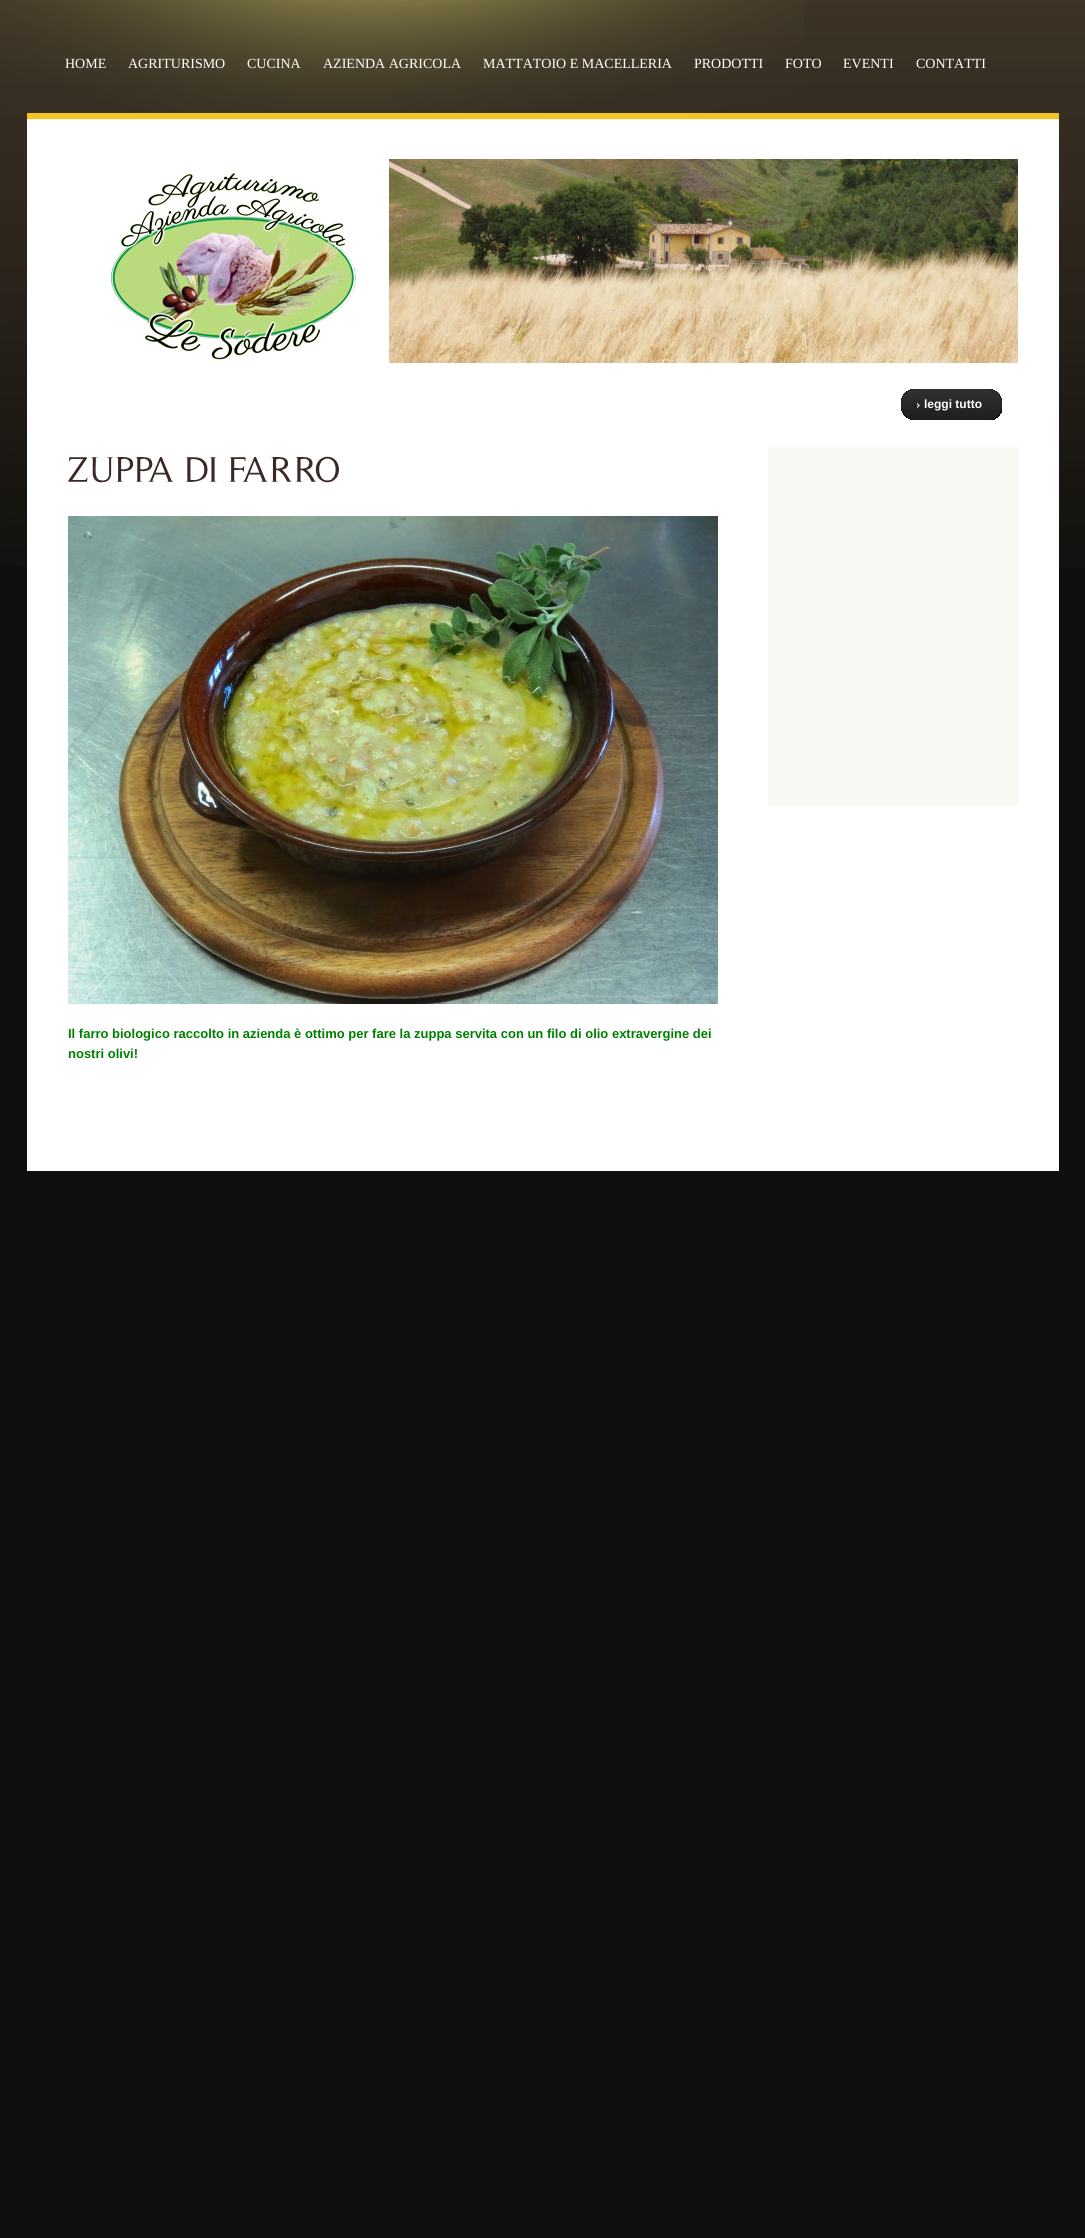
#include <cairo.h>
#include <math.h>
#include <stddef.h>

static cairo_t *ctx;

static void use_color(int r, int g, int b) {
    cairo_set_source_rgb(ctx, r / 255.0, g / 255.0, b / 255.0);
}

static void picture(const char *path, double x, double y, double w, double h) {
    cairo_surface_t *image = cairo_image_surface_create_from_png(path);
    cairo_save(ctx);
    cairo_set_source_surface(ctx, image, x, y);
    cairo_rectangle(ctx, x, y, w, h);
    cairo_fill(ctx);
    cairo_restore(ctx);
    cairo_surface_destroy(image);
}

int main(void) {
    cairo_surface_t *surface = cairo_image_surface_create(CAIRO_FORMAT_RGB24, 1085, 2238);
    ctx = cairo_create(surface);
    cairo_font_options_t *options = cairo_font_options_create();
    cairo_font_options_set_hint_metrics(options, CAIRO_HINT_METRICS_OFF);
    cairo_font_options_set_hint_style(options, CAIRO_HINT_STYLE_NONE);
    cairo_set_font_options(ctx, options);
    cairo_set_miter_limit(ctx, 4);
    use_color(15, 15, 14);
    cairo_paint(ctx);
    picture("img1.png", 804, 0, 281, 561);
    picture("img2.png", 0, 0, 804, 565);
    picture("img3.png", 27, 113, 1032, 260);
    picture("img4.png", 389, 159, 629, 204);
    cairo_select_font_face(ctx, "Liberation Serif", CAIRO_FONT_SLANT_NORMAL, CAIRO_FONT_WEIGHT_NORMAL);
    cairo_set_font_size(ctx, 14);
    use_color(255, 255, 255);
    cairo_move_to(ctx, 65, 68);
    cairo_show_text(ctx, "HOME");
    cairo_move_to(ctx, 128, 68);
    cairo_show_text(ctx, "AGRITURISMO");
    cairo_move_to(ctx, 247, 68);
    cairo_show_text(ctx, "CUCINA");
    cairo_move_to(ctx, 323, 68);
    cairo_show_text(ctx, "AZIENDA AGRICOLA");
    cairo_move_to(ctx, 483, 68);
    cairo_show_text(ctx, "MATTATOIO E MACELLERIA");
    cairo_move_to(ctx, 694, 68);
    cairo_show_text(ctx, "PRODOTTI");
    cairo_move_to(ctx, 785, 68);
    cairo_show_text(ctx, "FOTO");
    cairo_move_to(ctx, 843, 68);
    cairo_show_text(ctx, "EVENTI");
    cairo_move_to(ctx, 916, 68);
    cairo_show_text(ctx, "CONTATTI");
    picture("img5.png", 111, 170, 245, 190);
    cairo_rectangle(ctx, 27, 373, 1032, 798);
    cairo_fill(ctx);
    picture("img6.png", 901, 389, 101, 31);
    cairo_select_font_face(ctx, "Liberation Sans", CAIRO_FONT_SLANT_NORMAL, CAIRO_FONT_WEIGHT_BOLD);
    cairo_set_font_size(ctx, 12);
    cairo_move_to(ctx, 924, 408);
    cairo_show_text(ctx, "leggi tutto");
    use_color(249, 249, 243);
    cairo_rectangle(ctx, 768, 447, 250, 359);
    cairo_fill(ctx);
    picture("img7.png", 68, 457, 105, 26);
    picture("img8.png", 185, 457, 32, 25);
    picture("img9.png", 229, 456, 110, 27);
    picture("img10.png", 68, 516, 650, 488);
    cairo_set_font_size(ctx, 13);
    use_color(0, 128, 0);
    cairo_move_to(ctx, 68, 1038);
    cairo_show_text(ctx, "Il farro biologico raccolto in azienda è ottimo per fare la zuppa servita con un filo di olio extravergine dei");
    cairo_move_to(ctx, 68, 1058);
    cairo_show_text(ctx, "nostri olivi!");
    use_color(20, 18, 16);
    cairo_rectangle(ctx, 1059, 561, 26, 7);
    cairo_fill(ctx);
    cairo_surface_write_to_png(surface, "result.png");
    cairo_font_options_destroy(options);
    cairo_destroy(ctx);
    cairo_surface_destroy(surface);
    return 0;
}
